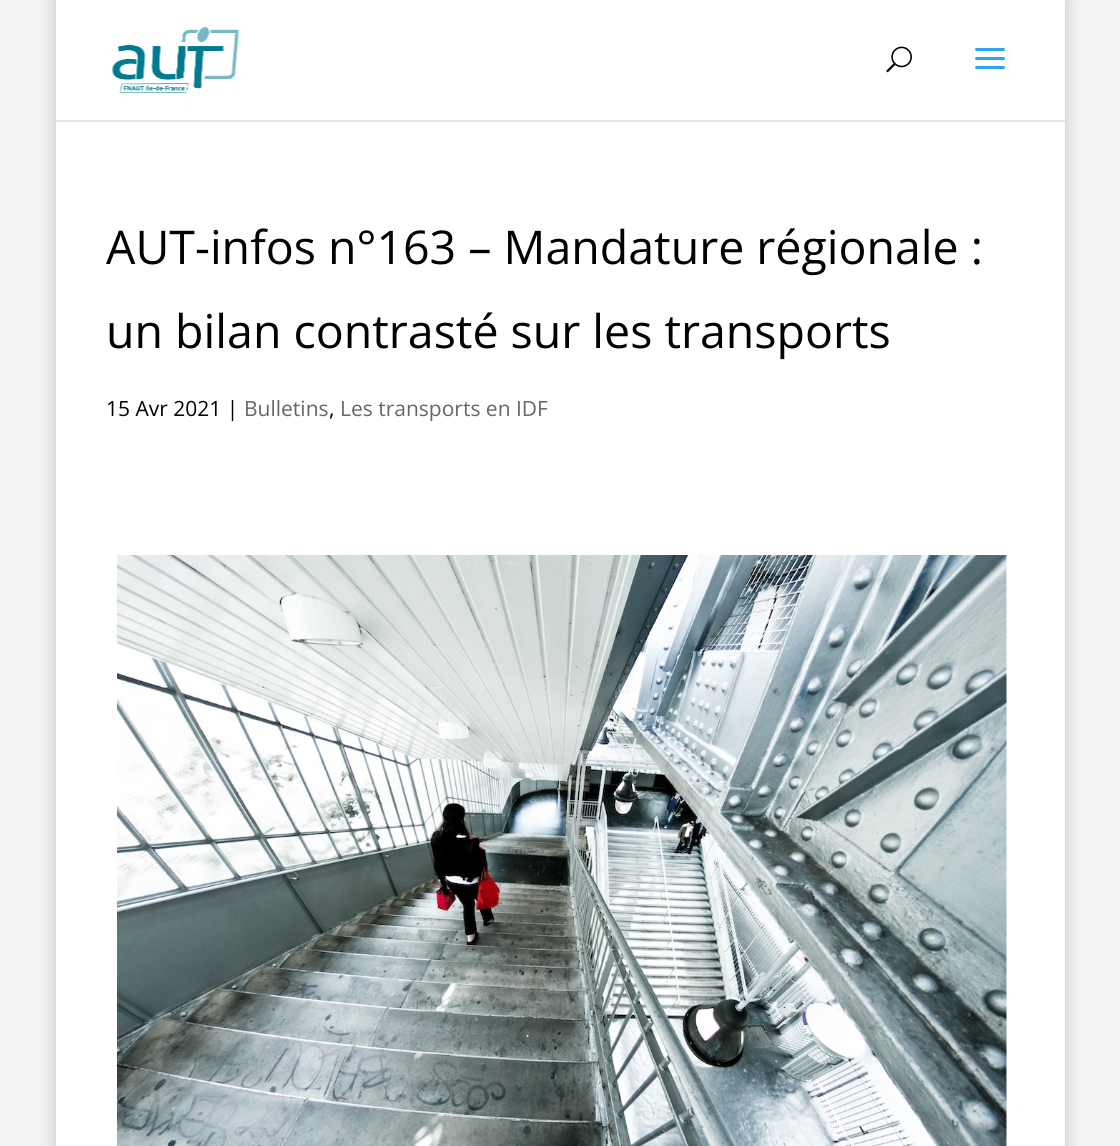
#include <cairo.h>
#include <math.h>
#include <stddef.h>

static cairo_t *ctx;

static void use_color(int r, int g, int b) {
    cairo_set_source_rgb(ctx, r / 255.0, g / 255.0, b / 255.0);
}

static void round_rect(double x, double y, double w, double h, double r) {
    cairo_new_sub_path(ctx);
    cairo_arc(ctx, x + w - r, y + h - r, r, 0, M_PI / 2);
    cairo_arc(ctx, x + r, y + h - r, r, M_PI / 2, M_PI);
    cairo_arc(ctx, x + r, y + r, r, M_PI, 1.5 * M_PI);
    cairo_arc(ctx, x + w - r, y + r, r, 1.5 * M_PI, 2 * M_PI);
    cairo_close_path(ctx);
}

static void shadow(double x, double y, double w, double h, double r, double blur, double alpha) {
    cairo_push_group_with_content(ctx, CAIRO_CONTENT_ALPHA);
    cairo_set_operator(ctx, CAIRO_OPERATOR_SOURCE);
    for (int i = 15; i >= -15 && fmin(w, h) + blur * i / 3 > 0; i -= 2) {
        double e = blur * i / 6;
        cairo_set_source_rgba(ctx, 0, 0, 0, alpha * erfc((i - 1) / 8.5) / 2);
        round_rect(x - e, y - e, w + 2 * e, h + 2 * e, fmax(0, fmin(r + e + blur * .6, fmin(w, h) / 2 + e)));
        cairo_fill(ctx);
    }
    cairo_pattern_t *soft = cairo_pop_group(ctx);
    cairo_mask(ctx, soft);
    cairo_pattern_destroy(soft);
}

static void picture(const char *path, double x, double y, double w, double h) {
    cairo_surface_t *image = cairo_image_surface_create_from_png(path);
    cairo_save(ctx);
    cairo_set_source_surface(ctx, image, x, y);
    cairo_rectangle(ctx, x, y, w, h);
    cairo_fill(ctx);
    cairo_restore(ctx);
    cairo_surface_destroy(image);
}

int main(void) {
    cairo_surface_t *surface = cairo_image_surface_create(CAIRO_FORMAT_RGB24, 1120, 1146);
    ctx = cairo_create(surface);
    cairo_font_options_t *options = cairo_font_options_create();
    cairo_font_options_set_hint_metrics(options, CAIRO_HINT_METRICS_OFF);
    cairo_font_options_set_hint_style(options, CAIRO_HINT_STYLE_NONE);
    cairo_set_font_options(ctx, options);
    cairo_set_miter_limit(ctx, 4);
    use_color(242, 242, 242);
    cairo_paint(ctx);
    use_color(0, 0, 0);
    shadow(56, 0, 1009, 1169, 0, 7.5, 0.2);
    use_color(230, 230, 230);
    cairo_rectangle(ctx, 56, 120, 1009, 2);
    cairo_fill(ctx);
    use_color(255, 255, 255);
    cairo_rectangle(ctx, 56, 0, 1009, 120);
    cairo_fill(ctx);
    picture("img1.png", 112, 27, 127, 66);
    picture("img2.png", 886, 46, 26, 27);
    picture("img3.png", 975, 48, 30, 21);
    cairo_rectangle(ctx, 56, 122, 1009, 1024);
    cairo_fill(ctx);
    cairo_select_font_face(ctx, "Open Sans", CAIRO_FONT_SLANT_NORMAL, CAIRO_FONT_WEIGHT_NORMAL);
    cairo_set_font_size(ctx, 46.5);
    use_color(0, 0, 0);
    cairo_move_to(ctx, 106, 264);
    cairo_show_text(ctx, "AUT-infos n°163 – Mandature régionale :");
    cairo_move_to(ctx, 106, 348);
    cairo_show_text(ctx, "un bilan contrasté sur les transports");
    cairo_set_font_size(ctx, 21);
    cairo_move_to(ctx, 106, 416);
    cairo_show_text(ctx, "15 Avr 2021 |");
    use_color(102, 102, 102);
    cairo_move_to(ctx, 244, 416);
    cairo_show_text(ctx, "Bulletins");
    use_color(0, 0, 0);
    cairo_move_to(ctx, 329, 416);
    cairo_show_text(ctx, ",");
    use_color(102, 102, 102);
    cairo_move_to(ctx, 340, 416);
    cairo_show_text(ctx, "Les transports en IDF");
    picture("img4.png", 117, 555, 890, 591);
    cairo_surface_write_to_png(surface, "result.png");
    cairo_font_options_destroy(options);
    cairo_destroy(ctx);
    cairo_surface_destroy(surface);
    return 0;
}
